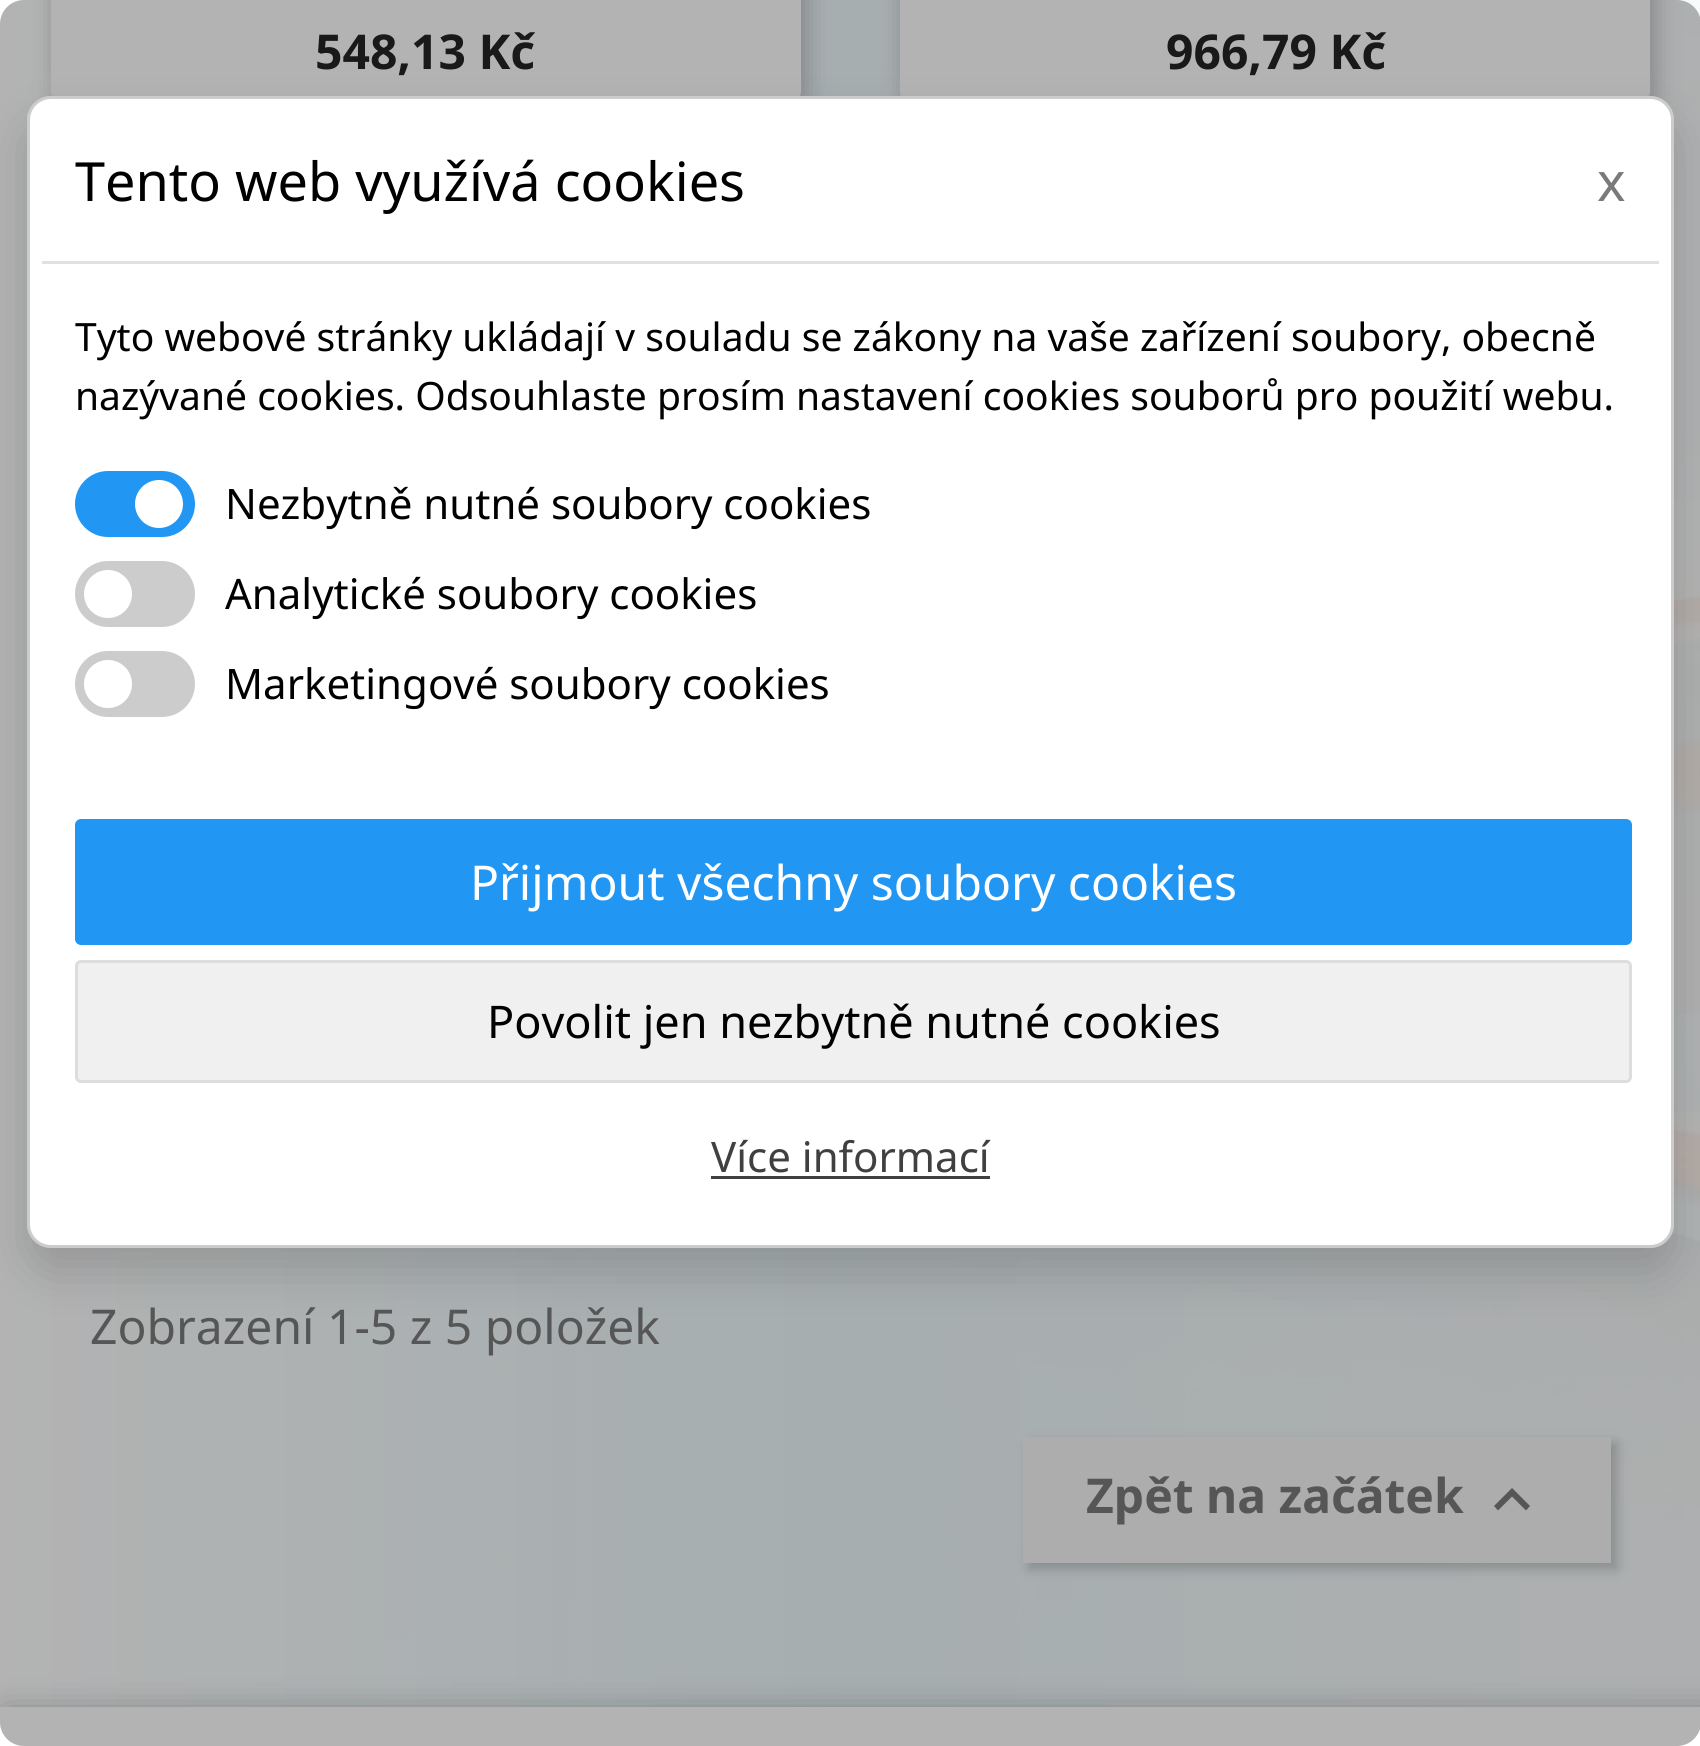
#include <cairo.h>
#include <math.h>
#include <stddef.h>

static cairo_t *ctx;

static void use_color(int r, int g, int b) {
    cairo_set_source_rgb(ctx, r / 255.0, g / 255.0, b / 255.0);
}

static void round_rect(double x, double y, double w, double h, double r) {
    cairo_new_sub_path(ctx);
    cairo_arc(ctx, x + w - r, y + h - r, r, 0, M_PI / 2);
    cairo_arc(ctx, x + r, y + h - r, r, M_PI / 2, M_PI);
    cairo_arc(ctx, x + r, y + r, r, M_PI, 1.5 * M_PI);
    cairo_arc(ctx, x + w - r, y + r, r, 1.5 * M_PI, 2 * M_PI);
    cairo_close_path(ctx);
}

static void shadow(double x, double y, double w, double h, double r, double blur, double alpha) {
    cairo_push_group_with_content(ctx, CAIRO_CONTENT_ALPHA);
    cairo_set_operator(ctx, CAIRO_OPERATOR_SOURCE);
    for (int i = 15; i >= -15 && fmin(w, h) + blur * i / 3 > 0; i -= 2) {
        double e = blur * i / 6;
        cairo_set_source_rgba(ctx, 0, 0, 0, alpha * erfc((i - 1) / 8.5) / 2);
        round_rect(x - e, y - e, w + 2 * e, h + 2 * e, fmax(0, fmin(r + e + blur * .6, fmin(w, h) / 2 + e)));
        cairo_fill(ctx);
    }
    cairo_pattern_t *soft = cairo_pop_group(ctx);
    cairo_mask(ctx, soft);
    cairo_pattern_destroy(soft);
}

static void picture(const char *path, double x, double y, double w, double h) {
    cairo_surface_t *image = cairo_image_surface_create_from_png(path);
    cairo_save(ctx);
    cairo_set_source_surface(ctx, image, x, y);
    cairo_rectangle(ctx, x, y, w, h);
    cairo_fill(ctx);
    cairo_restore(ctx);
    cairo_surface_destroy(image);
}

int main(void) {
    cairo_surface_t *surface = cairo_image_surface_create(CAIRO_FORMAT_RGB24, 1700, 1746);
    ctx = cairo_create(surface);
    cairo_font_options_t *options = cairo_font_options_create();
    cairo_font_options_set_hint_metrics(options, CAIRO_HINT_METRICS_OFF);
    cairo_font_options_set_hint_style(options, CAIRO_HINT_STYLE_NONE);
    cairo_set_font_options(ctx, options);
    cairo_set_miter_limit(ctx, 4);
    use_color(255, 255, 255);
    cairo_paint(ctx);
    picture("img1.png", 0, 0, 1700, 1707);
    use_color(0, 0, 0);
    shadow(57, -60, 750, 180, 24, 12, 0.2);
    shadow(66, -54, 720, 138, 9, 15, 0.2);
    use_color(255, 255, 255);
    round_rect(51, -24, 750, 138, 24);
    cairo_fill(ctx);
    cairo_select_font_face(ctx, "Noto Sans", CAIRO_FONT_SLANT_NORMAL, CAIRO_FONT_WEIGHT_BOLD);
    cairo_set_font_size(ctx, 48);
    use_color(35, 35, 35);
    cairo_move_to(ctx, 315, 69);
    cairo_show_text(ctx, "548,13 Kč");
    use_color(0, 0, 0);
    shadow(906, -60, 750, 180, 24, 12, 0.2);
    shadow(915, -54, 720, 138, 9, 15, 0.2);
    use_color(255, 255, 255);
    round_rect(900, -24, 750, 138, 24);
    cairo_fill(ctx);
    use_color(35, 35, 35);
    cairo_move_to(ctx, 1166, 69);
    cairo_show_text(ctx, "966,79 Kč");
    cairo_select_font_face(ctx, "Noto Sans", CAIRO_FONT_SLANT_NORMAL, CAIRO_FONT_WEIGHT_NORMAL);
    use_color(122, 122, 122);
    cairo_move_to(ctx, 90, 1344);
    cairo_show_text(ctx, "Zobrazení 1-5 z 5 položek");
    use_color(0, 0, 0);
    shadow(1029, 1443, 588, 126, 0, 6, 0.2);
    use_color(246, 246, 246);
    cairo_rectangle(ctx, 1023, 1437, 588, 126);
    cairo_fill(ctx);
    cairo_select_font_face(ctx, "Noto Sans", CAIRO_FONT_SLANT_NORMAL, CAIRO_FONT_WEIGHT_BOLD);
    use_color(122, 122, 122);
    cairo_move_to(ctx, 1086, 1513);
    cairo_show_text(ctx, "Zpět na začátek");
    cairo_new_path(ctx);
    cairo_move_to(ctx, 1498, 1510.5);
    cairo_line_to(ctx, 1494, 1506);
    cairo_line_to(ctx, 1512, 1488);
    cairo_line_to(ctx, 1530, 1506);
    cairo_line_to(ctx, 1526, 1510.5);
    cairo_line_to(ctx, 1512, 1496.5);
    cairo_close_path(ctx);
    cairo_fill(ctx);
    use_color(0, 0, 0);
    shadow(6, 1713, 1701, 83, 0, 16.5, 0.3);
    use_color(255, 255, 255);
    cairo_rectangle(ctx, 0, 1707, 1700, 39);
    cairo_fill(ctx);
    cairo_set_source_rgba(ctx, 0, 0, 0, 0.3);
    round_rect(0, 0, 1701, 1746, 24);
    cairo_fill(ctx);
    use_color(0, 0, 0);
    shadow(27, 120, 1647, 1152, 24, 24, 0.15);
    use_color(255, 255, 255);
    round_rect(27, 96, 1647, 1152, 24);
    cairo_fill(ctx);
    round_rect(28.5, 97.5, 1644, 1149, 22.5);
    cairo_set_source_rgba(ctx, 0, 0, 0, 0.2);
    cairo_set_line_width(ctx, 3);
    cairo_stroke(ctx);
    use_color(222, 226, 230);
    cairo_rectangle(ctx, 42, 261, 1617, 3);
    cairo_fill(ctx);
    cairo_select_font_face(ctx, "Noto Sans", CAIRO_FONT_SLANT_NORMAL, CAIRO_FONT_WEIGHT_NORMAL);
    cairo_set_font_size(ctx, 54);
    use_color(0, 0, 0);
    cairo_move_to(ctx, 75, 201);
    cairo_show_text(ctx, "Tento web využívá cookies");
    use_color(122, 122, 122);
    cairo_move_to(ctx, 1597, 201);
    cairo_show_text(ctx, "x");
    cairo_set_font_size(ctx, 39);
    use_color(0, 0, 0);
    cairo_move_to(ctx, 75, 351);
    cairo_show_text(ctx, "Tyto webové stránky ukládají v souladu se zákony na vaše zařízení soubory, obecně");
    cairo_move_to(ctx, 75, 410);
    cairo_show_text(ctx, "nazývané cookies. Odsouhlaste prosím nastavení cookies souborů pro použití webu.");
    use_color(33, 150, 243);
    round_rect(75, 471, 120, 66, 33);
    cairo_fill(ctx);
    use_color(255, 255, 255);
    cairo_arc(ctx, 159, 504, 24, 0, 2 * M_PI);
    cairo_fill(ctx);
    cairo_set_font_size(ctx, 42);
    use_color(0, 0, 0);
    cairo_move_to(ctx, 225, 519);
    cairo_show_text(ctx, "Nezbytně nutné soubory cookies");
    use_color(204, 204, 204);
    round_rect(75, 561, 120, 66, 33);
    cairo_fill(ctx);
    use_color(255, 255, 255);
    cairo_arc(ctx, 108, 594, 24, 0, 2 * M_PI);
    cairo_fill(ctx);
    use_color(0, 0, 0);
    cairo_move_to(ctx, 225, 609);
    cairo_show_text(ctx, "Analytické soubory cookies");
    use_color(204, 204, 204);
    round_rect(75, 651, 120, 66, 33);
    cairo_fill(ctx);
    use_color(255, 255, 255);
    cairo_arc(ctx, 108, 684, 24, 0, 2 * M_PI);
    cairo_fill(ctx);
    use_color(0, 0, 0);
    cairo_move_to(ctx, 225, 699);
    cairo_show_text(ctx, "Marketingové soubory cookies");
    use_color(33, 150, 243);
    round_rect(76.5, 820.5, 1554, 123, 4.5);
    cairo_fill_preserve(ctx);
    cairo_stroke(ctx);
    cairo_set_font_size(ctx, 48);
    use_color(255, 255, 255);
    cairo_move_to(ctx, 470, 900);
    cairo_show_text(ctx, "Přijmout všechny soubory cookies");
    use_color(240, 240, 240);
    round_rect(76.5, 961.5, 1554, 120, 4.5);
    cairo_fill_preserve(ctx);
    use_color(221, 221, 221);
    cairo_stroke(ctx);
    cairo_set_font_size(ctx, 45);
    use_color(0, 0, 0);
    cairo_move_to(ctx, 487, 1038);
    cairo_show_text(ctx, "Povolit jen nezbytně nutné cookies");
    cairo_set_font_size(ctx, 42);
    use_color(64, 64, 64);
    cairo_move_to(ctx, 711, 1172);
    cairo_show_text(ctx, "Více informací");
    cairo_rectangle(ctx, 711, 1176, 279, 3);
    cairo_fill(ctx);
    cairo_surface_write_to_png(surface, "result.png");
    cairo_font_options_destroy(options);
    cairo_destroy(ctx);
    cairo_surface_destroy(surface);
    return 0;
}
